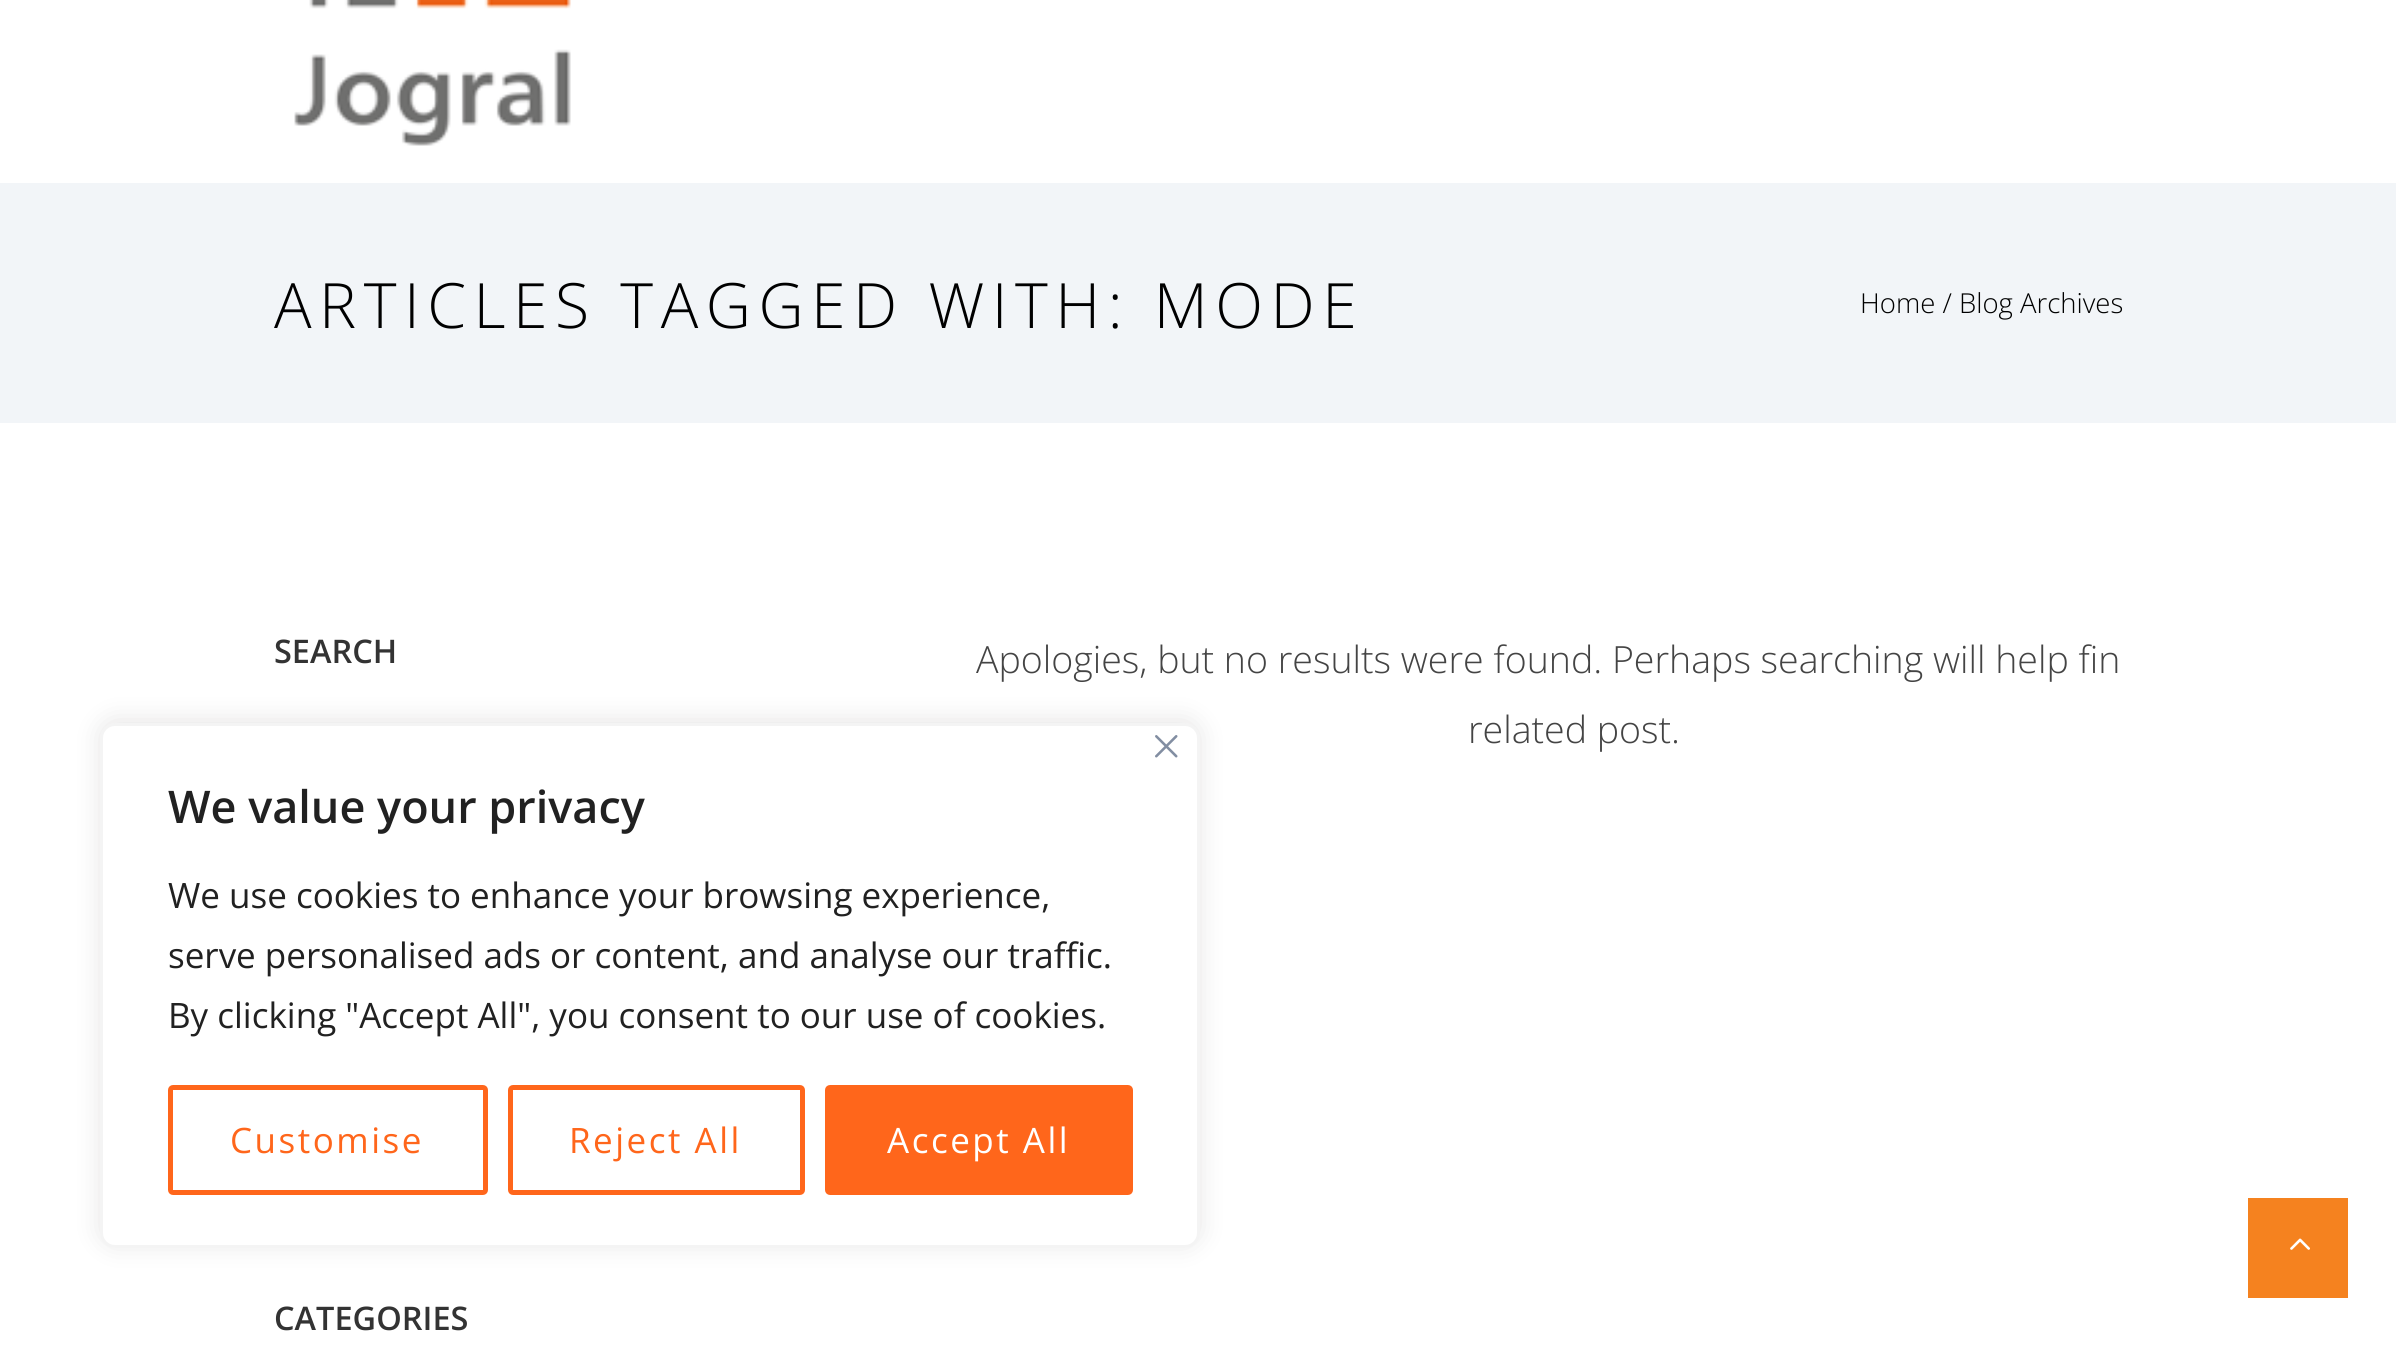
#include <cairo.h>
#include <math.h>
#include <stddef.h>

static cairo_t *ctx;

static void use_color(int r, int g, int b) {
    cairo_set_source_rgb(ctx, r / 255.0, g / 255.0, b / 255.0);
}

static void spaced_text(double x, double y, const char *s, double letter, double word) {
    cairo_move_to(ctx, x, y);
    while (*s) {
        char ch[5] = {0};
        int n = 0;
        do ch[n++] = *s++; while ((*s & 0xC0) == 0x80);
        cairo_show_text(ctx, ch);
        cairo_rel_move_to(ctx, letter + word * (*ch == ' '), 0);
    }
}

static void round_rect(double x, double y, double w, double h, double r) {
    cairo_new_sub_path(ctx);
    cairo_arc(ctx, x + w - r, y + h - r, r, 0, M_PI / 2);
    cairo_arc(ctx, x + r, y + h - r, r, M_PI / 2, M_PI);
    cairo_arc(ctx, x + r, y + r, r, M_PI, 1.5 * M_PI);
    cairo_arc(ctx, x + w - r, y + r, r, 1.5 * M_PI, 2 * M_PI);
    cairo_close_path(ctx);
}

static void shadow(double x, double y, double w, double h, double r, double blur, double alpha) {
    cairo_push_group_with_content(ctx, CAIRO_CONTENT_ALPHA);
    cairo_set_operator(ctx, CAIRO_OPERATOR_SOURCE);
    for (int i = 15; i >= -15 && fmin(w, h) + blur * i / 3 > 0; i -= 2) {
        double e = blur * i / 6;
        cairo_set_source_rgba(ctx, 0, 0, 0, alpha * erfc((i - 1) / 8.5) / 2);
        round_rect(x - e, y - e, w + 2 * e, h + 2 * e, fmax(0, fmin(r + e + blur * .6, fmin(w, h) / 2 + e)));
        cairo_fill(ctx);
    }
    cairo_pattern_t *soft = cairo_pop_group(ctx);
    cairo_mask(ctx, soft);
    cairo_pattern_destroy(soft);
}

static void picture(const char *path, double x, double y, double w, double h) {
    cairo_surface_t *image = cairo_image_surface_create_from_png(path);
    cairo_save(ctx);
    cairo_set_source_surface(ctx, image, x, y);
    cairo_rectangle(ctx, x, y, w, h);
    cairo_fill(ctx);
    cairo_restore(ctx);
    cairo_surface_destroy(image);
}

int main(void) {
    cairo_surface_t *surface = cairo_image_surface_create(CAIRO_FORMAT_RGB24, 2396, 1346);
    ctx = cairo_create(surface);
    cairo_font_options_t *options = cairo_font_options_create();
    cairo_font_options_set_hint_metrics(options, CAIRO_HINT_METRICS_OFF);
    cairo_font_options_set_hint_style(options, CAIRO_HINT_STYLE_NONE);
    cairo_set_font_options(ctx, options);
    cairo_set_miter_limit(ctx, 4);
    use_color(255, 255, 255);
    cairo_paint(ctx);
    picture("img1.png", 294, 0, 277, 146);
    use_color(242, 245, 248);
    cairo_rectangle(ctx, 0, 183, 2396, 240);
    cairo_fill(ctx);
    cairo_select_font_face(ctx, "Open Sans Light", CAIRO_FONT_SLANT_NORMAL, CAIRO_FONT_WEIGHT_NORMAL);
    cairo_set_font_size(ctx, 62.5);
    use_color(0, 0, 0);
    spaced_text(274, 328, "ARTICLES TAGGED WITH: MODE", 7.5, 0);
    cairo_set_font_size(ctx, 27.5);
    cairo_move_to(ctx, 1860, 313);
    cairo_show_text(ctx, "Home / Blog Archives");
    cairo_select_font_face(ctx, "Open Sans SemiBold", CAIRO_FONT_SLANT_NORMAL, CAIRO_FONT_WEIGHT_NORMAL);
    cairo_set_font_size(ctx, 32.5);
    use_color(51, 51, 51);
    cairo_move_to(ctx, 274, 663);
    cairo_show_text(ctx, "SEARCH");
    cairo_move_to(ctx, 274, 1330);
    cairo_show_text(ctx, "CATEGORIES");
    cairo_select_font_face(ctx, "Open Sans Light", CAIRO_FONT_SLANT_NORMAL, CAIRO_FONT_WEIGHT_NORMAL);
    cairo_set_font_size(ctx, 37.5);
    use_color(68, 68, 68);
    cairo_move_to(ctx, 976, 673);
    cairo_show_text(ctx, "Apologies, but no results were found. Perhaps searching will help fin");
    cairo_move_to(ctx, 1468, 743);
    cairo_show_text(ctx, "related post.");
    use_color(245, 130, 31);
    cairo_rectangle(ctx, 2248, 1198, 100, 100);
    cairo_fill(ctx);
    picture("img2.png", 2290, 1238, 20, 12);
    use_color(172, 171, 171);
    shadow(100, 720, 1100, 525, 15, 12.5, 0.3);
    use_color(255, 255, 255);
    round_rect(101.5, 724.5, 1097, 522, 13.5);
    cairo_fill_preserve(ctx);
    use_color(244, 244, 244);
    cairo_set_line_width(ctx, 3);
    cairo_stroke(ctx);
    picture("img3.png", 1155, 735, 23, 23);
    cairo_select_font_face(ctx, "Open Sans SemiBold", CAIRO_FONT_SLANT_NORMAL, CAIRO_FONT_WEIGHT_NORMAL);
    cairo_set_font_size(ctx, 45);
    use_color(33, 33, 33);
    cairo_move_to(ctx, 168, 823);
    cairo_show_text(ctx, "We value your privacy");
    cairo_select_font_face(ctx, "Open Sans", CAIRO_FONT_SLANT_NORMAL, CAIRO_FONT_WEIGHT_NORMAL);
    cairo_set_font_size(ctx, 35);
    cairo_move_to(ctx, 168, 908);
    cairo_show_text(ctx, "We use cookies to enhance your browsing experience,");
    cairo_move_to(ctx, 168, 968);
    cairo_show_text(ctx, "serve personalised ads or content, and analyse our traffic.");
    cairo_move_to(ctx, 168, 1028);
    cairo_show_text(ctx, "By clicking \"Accept All\", you consent to our use of cookies.");
    round_rect(170.5, 1087.5, 315, 105, 2.5);
    use_color(255, 102, 27);
    cairo_set_line_width(ctx, 5);
    cairo_stroke(ctx);
    spaced_text(230, 1153, "Customise", 2.5, 0);
    round_rect(510.5, 1087.5, 292, 105, 2.5);
    cairo_stroke(ctx);
    spaced_text(569, 1153, "Reject All", 2.5, 0);
    round_rect(827.5, 1087.5, 303, 105, 2.5);
    cairo_fill_preserve(ctx);
    cairo_stroke(ctx);
    use_color(255, 255, 255);
    spaced_text(887, 1153, "Accept All", 2.5, 0);
    cairo_surface_write_to_png(surface, "result.png");
    cairo_font_options_destroy(options);
    cairo_destroy(ctx);
    cairo_surface_destroy(surface);
    return 0;
}
